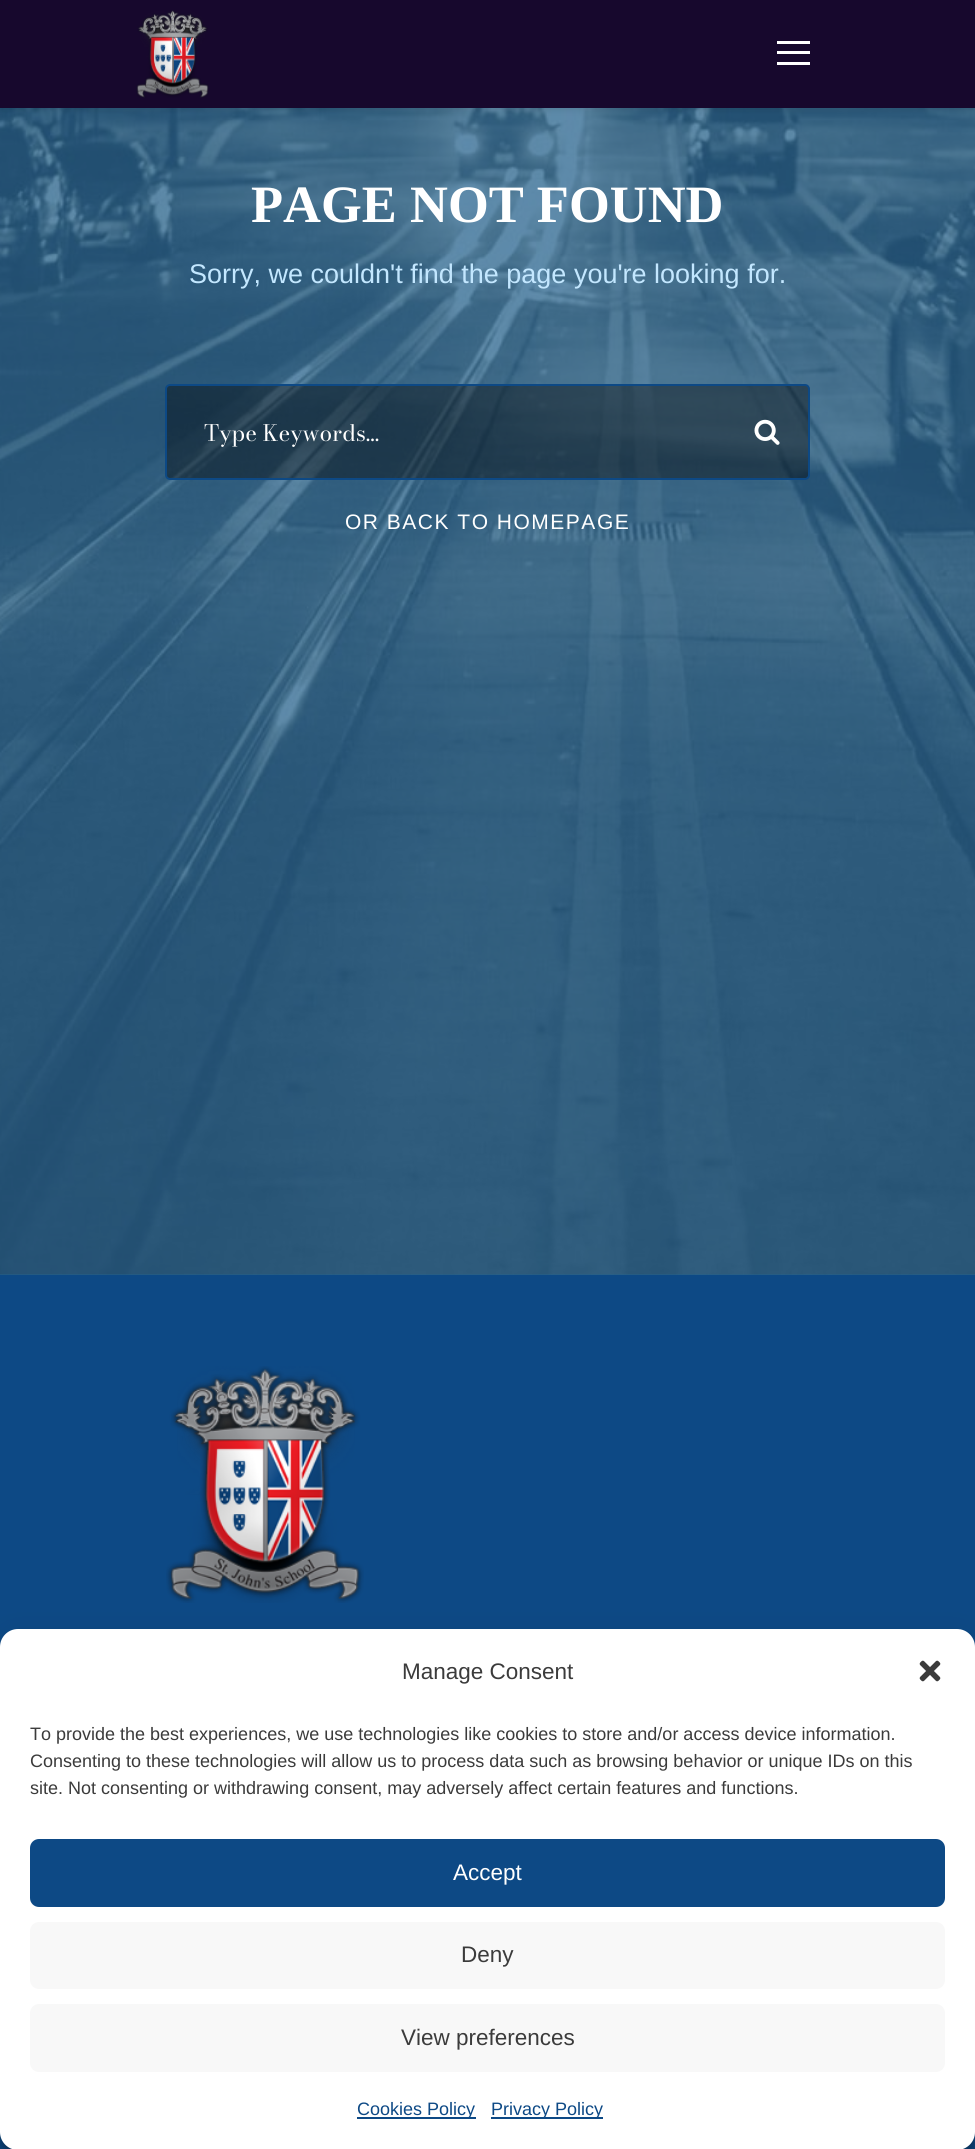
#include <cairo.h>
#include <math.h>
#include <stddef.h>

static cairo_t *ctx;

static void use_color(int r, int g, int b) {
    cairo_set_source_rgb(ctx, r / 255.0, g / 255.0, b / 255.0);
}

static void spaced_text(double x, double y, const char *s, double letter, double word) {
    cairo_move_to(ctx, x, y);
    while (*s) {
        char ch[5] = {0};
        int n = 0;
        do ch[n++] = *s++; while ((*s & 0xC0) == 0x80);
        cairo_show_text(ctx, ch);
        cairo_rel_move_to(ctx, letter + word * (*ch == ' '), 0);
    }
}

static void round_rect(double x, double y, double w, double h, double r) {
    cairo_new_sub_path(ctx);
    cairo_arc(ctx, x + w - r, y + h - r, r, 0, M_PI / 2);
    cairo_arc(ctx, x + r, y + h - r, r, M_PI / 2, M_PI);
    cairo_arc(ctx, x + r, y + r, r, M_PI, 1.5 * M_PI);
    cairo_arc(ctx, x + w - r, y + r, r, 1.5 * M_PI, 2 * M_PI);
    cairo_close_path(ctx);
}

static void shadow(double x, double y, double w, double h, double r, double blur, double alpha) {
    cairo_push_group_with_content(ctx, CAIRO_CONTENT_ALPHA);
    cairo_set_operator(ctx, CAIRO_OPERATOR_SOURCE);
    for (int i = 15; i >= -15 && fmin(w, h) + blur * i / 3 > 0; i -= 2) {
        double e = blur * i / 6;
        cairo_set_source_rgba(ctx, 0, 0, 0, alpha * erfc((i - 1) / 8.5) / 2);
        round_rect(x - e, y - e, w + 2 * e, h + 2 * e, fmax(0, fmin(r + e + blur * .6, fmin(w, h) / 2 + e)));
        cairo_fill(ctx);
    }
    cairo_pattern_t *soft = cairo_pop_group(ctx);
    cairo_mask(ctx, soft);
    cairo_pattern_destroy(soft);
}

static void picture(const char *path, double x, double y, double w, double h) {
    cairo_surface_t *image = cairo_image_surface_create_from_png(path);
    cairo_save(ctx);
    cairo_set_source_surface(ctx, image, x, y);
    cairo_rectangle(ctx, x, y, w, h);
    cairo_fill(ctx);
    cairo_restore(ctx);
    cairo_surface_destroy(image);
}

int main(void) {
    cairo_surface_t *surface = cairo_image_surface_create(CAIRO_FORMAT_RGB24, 975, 2149);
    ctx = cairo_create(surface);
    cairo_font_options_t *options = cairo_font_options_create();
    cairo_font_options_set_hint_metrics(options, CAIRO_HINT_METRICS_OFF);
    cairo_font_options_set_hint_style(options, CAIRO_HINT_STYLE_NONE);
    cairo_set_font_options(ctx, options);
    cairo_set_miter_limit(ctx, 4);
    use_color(13, 73, 133);
    cairo_paint(ctx);
    use_color(35, 97, 142);
    cairo_rectangle(ctx, 0, 108, 975, 1167);
    cairo_fill(ctx);
    picture("img2.png", 0, 108, 975, 1167);
    use_color(0, 0, 0);
    shadow(0, 2, 975, 108, 0, 3, 0.1);
    use_color(23, 8, 45);
    cairo_rectangle(ctx, 0, 0, 975, 108);
    cairo_fill(ctx);
    picture("img1.png", 136, 10, 73, 88);
    use_color(255, 255, 255);
    cairo_rectangle(ctx, 777, 41, 33, 3);
    cairo_fill(ctx);
    cairo_rectangle(ctx, 777, 51, 33, 3);
    cairo_fill(ctx);
    cairo_rectangle(ctx, 777, 62, 33, 3);
    cairo_fill(ctx);
    cairo_select_font_face(ctx, "Liberation Serif", CAIRO_FONT_SLANT_NORMAL, CAIRO_FONT_WEIGHT_BOLD);
    cairo_set_font_size(ctx, 52.5);
    cairo_move_to(ctx, 251, 222);
    cairo_show_text(ctx, "PAGE NOT FOUND");
    cairo_select_font_face(ctx, "Liberation Sans", CAIRO_FONT_SLANT_NORMAL, CAIRO_FONT_WEIGHT_NORMAL);
    cairo_set_font_size(ctx, 27);
    use_color(195, 231, 255);
    cairo_move_to(ctx, 189, 283);
    cairo_show_text(ctx, "Sorry, we couldn't find the page you're looking for.");
    cairo_set_source_rgba(ctx, 0, 0, 0, 0.4);
    round_rect(166, 385, 643, 94, 4);
    cairo_fill_preserve(ctx);
    use_color(13, 73, 133);
    cairo_stroke(ctx);
    cairo_select_font_face(ctx, "Bodoni Moda", CAIRO_FONT_SLANT_NORMAL, CAIRO_FONT_WEIGHT_NORMAL);
    cairo_set_font_size(ctx, 22.5);
    use_color(255, 255, 255);
    cairo_move_to(ctx, 204, 441);
    cairo_show_text(ctx, "Type Keywords...");
    picture("img3.png", 754, 419, 26, 26);
    cairo_select_font_face(ctx, "Liberation Sans", CAIRO_FONT_SLANT_NORMAL, CAIRO_FONT_WEIGHT_NORMAL);
    cairo_set_font_size(ctx, 21);
    spaced_text(345, 529, "OR BACK TO HOMEPAGE", 1.5, 0);
    picture("img4.png", 166, 1366, 198, 237);
    use_color(0, 0, 0);
    shadow(0, 1638, 975, 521, 18, 4.5, 0.23);
    shadow(0, 1644, 975, 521, 18, 15, 0.19);
    use_color(255, 255, 255);
    round_rect(0, 1629, 975, 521, 18);
    cairo_fill(ctx);
    cairo_set_font_size(ctx, 22.5);
    use_color(59, 59, 59);
    cairo_move_to(ctx, 402, 1679);
    cairo_show_text(ctx, "Manage Consent");
    picture("img5.png", 919, 1660, 22, 22);
    cairo_set_font_size(ctx, 18);
    cairo_move_to(ctx, 30, 1740);
    cairo_show_text(ctx, "To provide the best experiences, we use technologies like cookies to store and/or access device information.");
    cairo_move_to(ctx, 30, 1767);
    cairo_show_text(ctx, "Consenting to these technologies will allow us to process data such as browsing behavior or unique IDs on this");
    cairo_move_to(ctx, 30, 1794);
    cairo_show_text(ctx, "site. Not consenting or withdrawing consent, may adversely affect certain features and functions.");
    use_color(13, 73, 133);
    round_rect(31, 1840, 913, 66, 8);
    cairo_fill_preserve(ctx);
    cairo_stroke(ctx);
    cairo_set_font_size(ctx, 22.5);
    use_color(255, 255, 255);
    cairo_move_to(ctx, 453, 1880);
    cairo_show_text(ctx, "Accept");
    use_color(248, 248, 248);
    round_rect(30, 1922, 915, 67, 9);
    cairo_fill(ctx);
    use_color(59, 59, 59);
    cairo_move_to(ctx, 461, 1962);
    cairo_show_text(ctx, "Deny");
    use_color(248, 248, 248);
    round_rect(30, 2004, 915, 68, 9);
    cairo_fill(ctx);
    use_color(59, 59, 59);
    cairo_move_to(ctx, 401, 2045);
    cairo_show_text(ctx, "View preferences");
    use_color(13, 73, 133);
    cairo_rectangle(ctx, 357, 2117, 119, 2);
    cairo_fill(ctx);
    cairo_set_font_size(ctx, 18);
    cairo_move_to(ctx, 357, 2115);
    cairo_show_text(ctx, "Cookies Policy");
    cairo_rectangle(ctx, 491, 2117, 112, 2);
    cairo_fill(ctx);
    cairo_move_to(ctx, 491, 2115);
    cairo_show_text(ctx, "Privacy Policy");
    cairo_surface_write_to_png(surface, "result.png");
    cairo_font_options_destroy(options);
    cairo_destroy(ctx);
    cairo_surface_destroy(surface);
    return 0;
}
